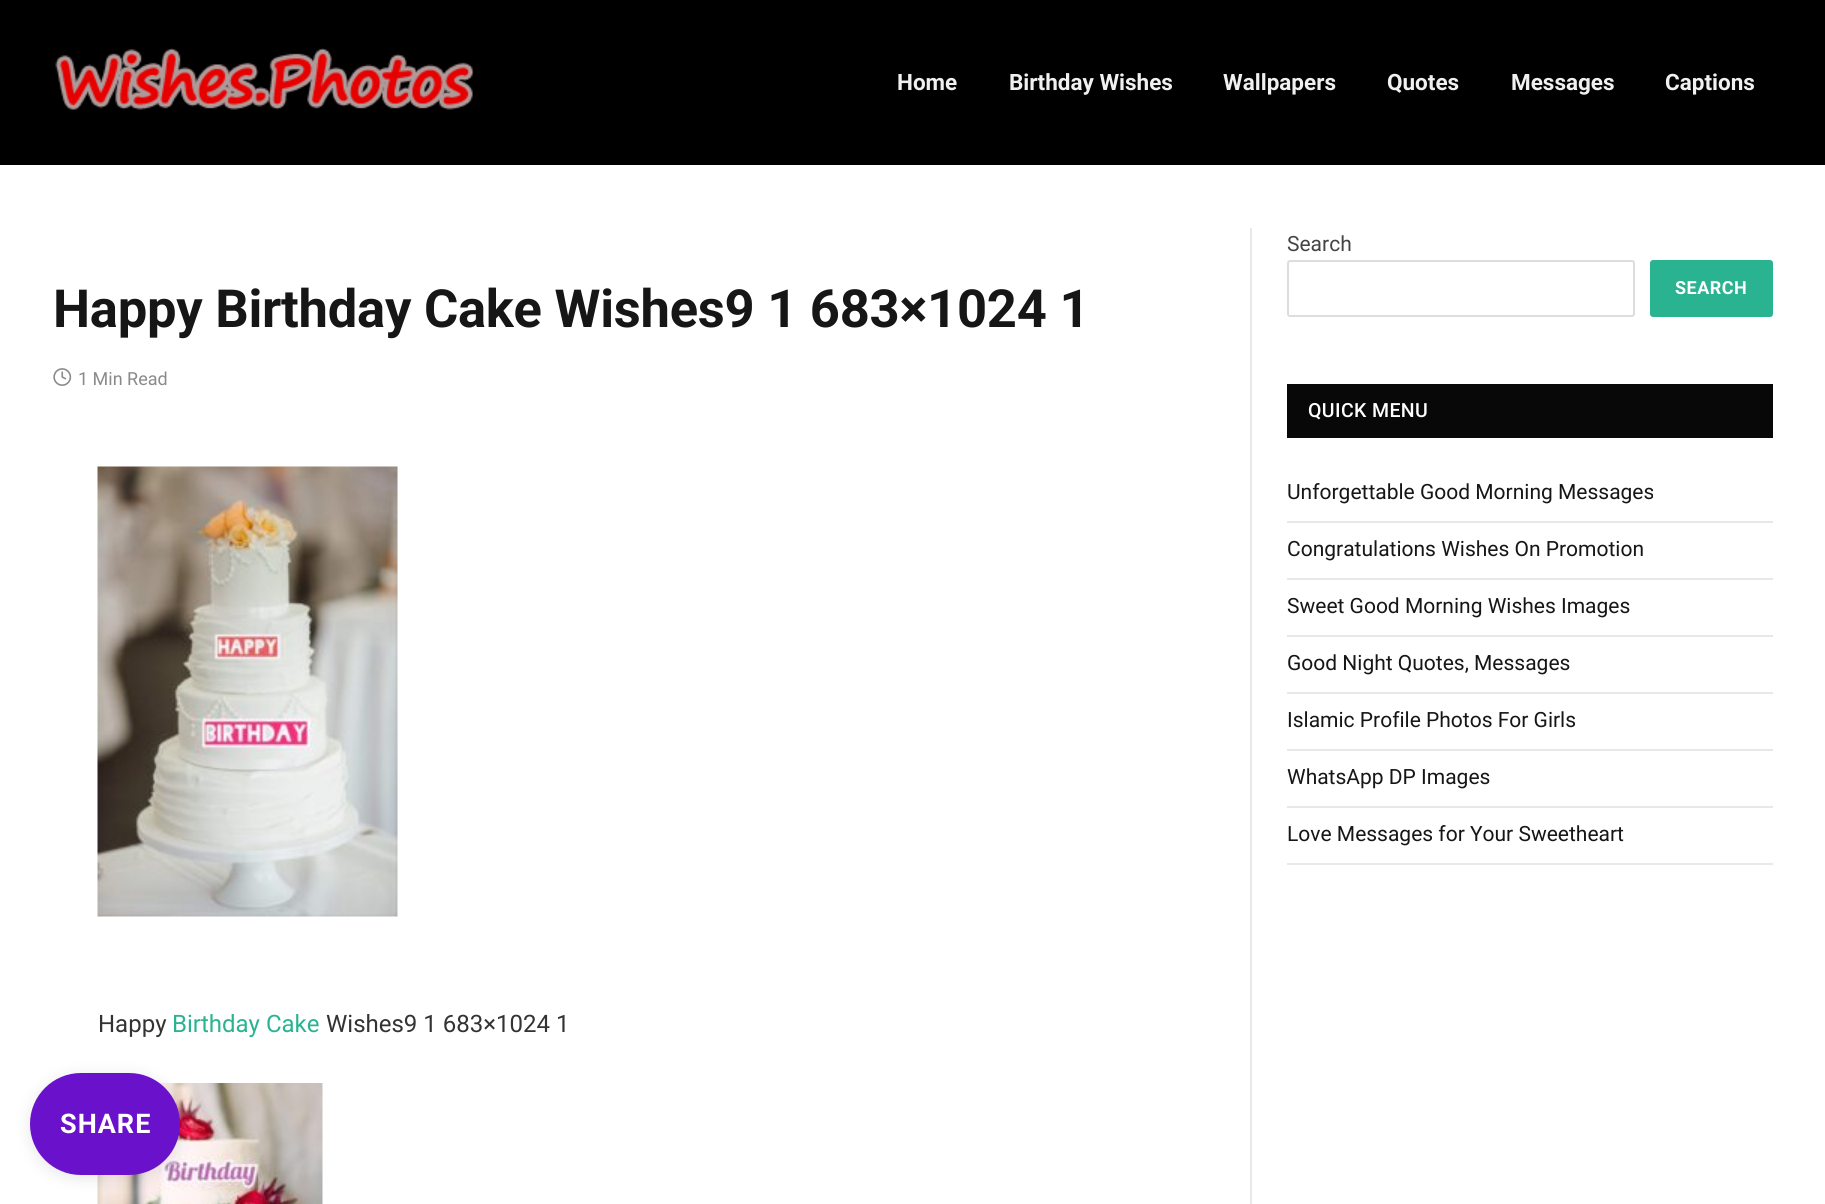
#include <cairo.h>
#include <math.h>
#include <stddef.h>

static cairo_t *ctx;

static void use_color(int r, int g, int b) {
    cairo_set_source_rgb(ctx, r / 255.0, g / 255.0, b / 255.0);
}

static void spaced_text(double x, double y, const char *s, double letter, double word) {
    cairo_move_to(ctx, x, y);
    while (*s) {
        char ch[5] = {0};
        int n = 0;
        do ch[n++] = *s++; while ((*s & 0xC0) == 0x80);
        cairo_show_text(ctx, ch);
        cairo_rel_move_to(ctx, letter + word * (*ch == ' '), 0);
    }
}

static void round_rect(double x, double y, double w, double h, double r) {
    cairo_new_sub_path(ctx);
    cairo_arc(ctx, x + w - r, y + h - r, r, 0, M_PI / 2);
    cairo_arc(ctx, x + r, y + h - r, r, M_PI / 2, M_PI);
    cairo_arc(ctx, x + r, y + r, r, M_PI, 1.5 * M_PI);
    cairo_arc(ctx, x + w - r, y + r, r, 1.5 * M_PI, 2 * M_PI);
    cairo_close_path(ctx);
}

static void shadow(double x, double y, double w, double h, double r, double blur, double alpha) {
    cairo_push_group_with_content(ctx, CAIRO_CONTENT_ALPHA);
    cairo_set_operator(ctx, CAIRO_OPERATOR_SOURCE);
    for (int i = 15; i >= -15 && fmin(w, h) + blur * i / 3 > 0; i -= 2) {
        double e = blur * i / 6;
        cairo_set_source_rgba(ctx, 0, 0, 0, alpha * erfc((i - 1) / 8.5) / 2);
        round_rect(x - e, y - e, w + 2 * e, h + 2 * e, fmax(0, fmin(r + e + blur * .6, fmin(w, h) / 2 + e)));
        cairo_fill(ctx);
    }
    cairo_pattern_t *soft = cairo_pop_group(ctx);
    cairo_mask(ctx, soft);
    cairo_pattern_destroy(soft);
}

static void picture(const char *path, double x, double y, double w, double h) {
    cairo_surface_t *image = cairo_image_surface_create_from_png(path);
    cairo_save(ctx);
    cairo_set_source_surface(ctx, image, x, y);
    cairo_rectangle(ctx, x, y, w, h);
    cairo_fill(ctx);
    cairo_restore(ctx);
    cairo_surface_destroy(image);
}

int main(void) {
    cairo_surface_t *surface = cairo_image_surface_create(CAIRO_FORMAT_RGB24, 1825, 1204);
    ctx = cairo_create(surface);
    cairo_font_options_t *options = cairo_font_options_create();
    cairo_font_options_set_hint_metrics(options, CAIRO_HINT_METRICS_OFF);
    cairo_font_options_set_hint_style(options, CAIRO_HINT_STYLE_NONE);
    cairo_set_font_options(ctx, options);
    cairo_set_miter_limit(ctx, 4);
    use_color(255, 255, 255);
    cairo_paint(ctx);
    use_color(0, 0, 0);
    cairo_rectangle(ctx, 0, 0, 1825, 165);
    cairo_fill(ctx);
    picture("img1.png", 55, 48, 419, 62);
    cairo_select_font_face(ctx, "Roboto", CAIRO_FONT_SLANT_NORMAL, CAIRO_FONT_WEIGHT_BOLD);
    cairo_set_font_size(ctx, 22.5);
    use_color(240, 240, 240);
    cairo_move_to(ctx, 897, 90);
    cairo_show_text(ctx, "Home");
    cairo_move_to(ctx, 1009, 90);
    cairo_show_text(ctx, "Birthday Wishes");
    cairo_move_to(ctx, 1223, 90);
    cairo_show_text(ctx, "Wallpapers");
    cairo_move_to(ctx, 1387, 90);
    cairo_show_text(ctx, "Quotes");
    cairo_move_to(ctx, 1511, 90);
    cairo_show_text(ctx, "Messages");
    cairo_move_to(ctx, 1665, 90);
    cairo_show_text(ctx, "Captions");
    cairo_set_font_size(ctx, 52.5);
    use_color(22, 22, 22);
    spaced_text(53, 327, "Happy Birthday Cake Wishes9 1 683×1024 1", -0.25, 0);
    picture("img2.png", 53, 368, 19, 18);
    cairo_select_font_face(ctx, "Roboto", CAIRO_FONT_SLANT_NORMAL, CAIRO_FONT_WEIGHT_NORMAL);
    cairo_set_font_size(ctx, 18);
    use_color(138, 138, 138);
    cairo_move_to(ctx, 78, 385);
    cairo_show_text(ctx, "1 Min Read");
    picture("img3.png", 97, 466, 301, 451);
    cairo_set_font_size(ctx, 24);
    use_color(51, 51, 51);
    cairo_move_to(ctx, 98, 1032);
    cairo_show_text(ctx, "Happy");
    use_color(42, 179, 145);
    cairo_move_to(ctx, 172, 1032);
    cairo_show_text(ctx, "Birthday Cake");
    use_color(51, 51, 51);
    cairo_move_to(ctx, 326, 1032);
    cairo_show_text(ctx, "Wishes9 1 683×1024 1");
    picture("img4.png", 97, 1083, 226, 121);
    use_color(232, 232, 232);
    cairo_rectangle(ctx, 1250, 228, 2, 976);
    cairo_fill(ctx);
    cairo_set_font_size(ctx, 21);
    use_color(68, 68, 68);
    cairo_move_to(ctx, 1287, 251);
    cairo_show_text(ctx, "Search");
    round_rect(1288, 261, 346, 55, 2);
    use_color(221, 221, 221);
    cairo_stroke(ctx);
    use_color(42, 179, 145);
    round_rect(1650, 260, 123, 57, 3);
    cairo_fill(ctx);
    cairo_select_font_face(ctx, "Roboto", CAIRO_FONT_SLANT_NORMAL, CAIRO_FONT_WEIGHT_BOLD);
    cairo_set_font_size(ctx, 18);
    use_color(255, 255, 255);
    spaced_text(1675, 294, "SEARCH", 0.5, 0);
    use_color(8, 8, 8);
    cairo_rectangle(ctx, 1287, 384, 486, 54);
    cairo_fill(ctx);
    cairo_select_font_face(ctx, "Roboto Medium", CAIRO_FONT_SLANT_NORMAL, CAIRO_FONT_WEIGHT_NORMAL);
    cairo_set_font_size(ctx, 19.5);
    use_color(255, 255, 255);
    spaced_text(1308, 417, "QUICK MENU", 0.4, 0);
    use_color(232, 232, 232);
    cairo_rectangle(ctx, 1287, 521, 486, 2);
    cairo_fill(ctx);
    cairo_select_font_face(ctx, "Roboto", CAIRO_FONT_SLANT_NORMAL, CAIRO_FONT_WEIGHT_NORMAL);
    cairo_set_font_size(ctx, 21);
    use_color(22, 22, 22);
    cairo_move_to(ctx, 1287, 499);
    cairo_show_text(ctx, "Unforgettable Good Morning Messages");
    use_color(232, 232, 232);
    cairo_rectangle(ctx, 1287, 578, 486, 2);
    cairo_fill(ctx);
    use_color(22, 22, 22);
    cairo_move_to(ctx, 1287, 556);
    cairo_show_text(ctx, "Congratulations Wishes On Promotion");
    use_color(232, 232, 232);
    cairo_rectangle(ctx, 1287, 635, 486, 2);
    cairo_fill(ctx);
    use_color(22, 22, 22);
    cairo_move_to(ctx, 1287, 613);
    cairo_show_text(ctx, "Sweet Good Morning Wishes Images");
    use_color(232, 232, 232);
    cairo_rectangle(ctx, 1287, 692, 486, 2);
    cairo_fill(ctx);
    use_color(22, 22, 22);
    cairo_move_to(ctx, 1287, 670);
    cairo_show_text(ctx, "Good Night Quotes, Messages");
    use_color(232, 232, 232);
    cairo_rectangle(ctx, 1287, 749, 486, 2);
    cairo_fill(ctx);
    use_color(22, 22, 22);
    cairo_move_to(ctx, 1287, 727);
    cairo_show_text(ctx, "Islamic Profile Photos For Girls");
    use_color(232, 232, 232);
    cairo_rectangle(ctx, 1287, 806, 486, 2);
    cairo_fill(ctx);
    use_color(22, 22, 22);
    cairo_move_to(ctx, 1287, 784);
    cairo_show_text(ctx, "WhatsApp DP Images");
    use_color(232, 232, 232);
    cairo_rectangle(ctx, 1287, 863, 486, 2);
    cairo_fill(ctx);
    use_color(22, 22, 22);
    cairo_move_to(ctx, 1287, 841);
    cairo_show_text(ctx, "Love Messages for Your Sweetheart");
    use_color(0, 0, 0);
    shadow(30, 1076, 150, 102, 51, 7.5, 0.1);
    use_color(106, 17, 203);
    round_rect(30, 1073, 150, 102, 51);
    cairo_fill(ctx);
    cairo_select_font_face(ctx, "Roboto", CAIRO_FONT_SLANT_NORMAL, CAIRO_FONT_WEIGHT_BOLD);
    cairo_set_font_size(ctx, 27);
    use_color(255, 255, 255);
    spaced_text(60, 1133, "SHARE", 1, 0);
    cairo_surface_write_to_png(surface, "result.png");
    cairo_font_options_destroy(options);
    cairo_destroy(ctx);
    cairo_surface_destroy(surface);
    return 0;
}
